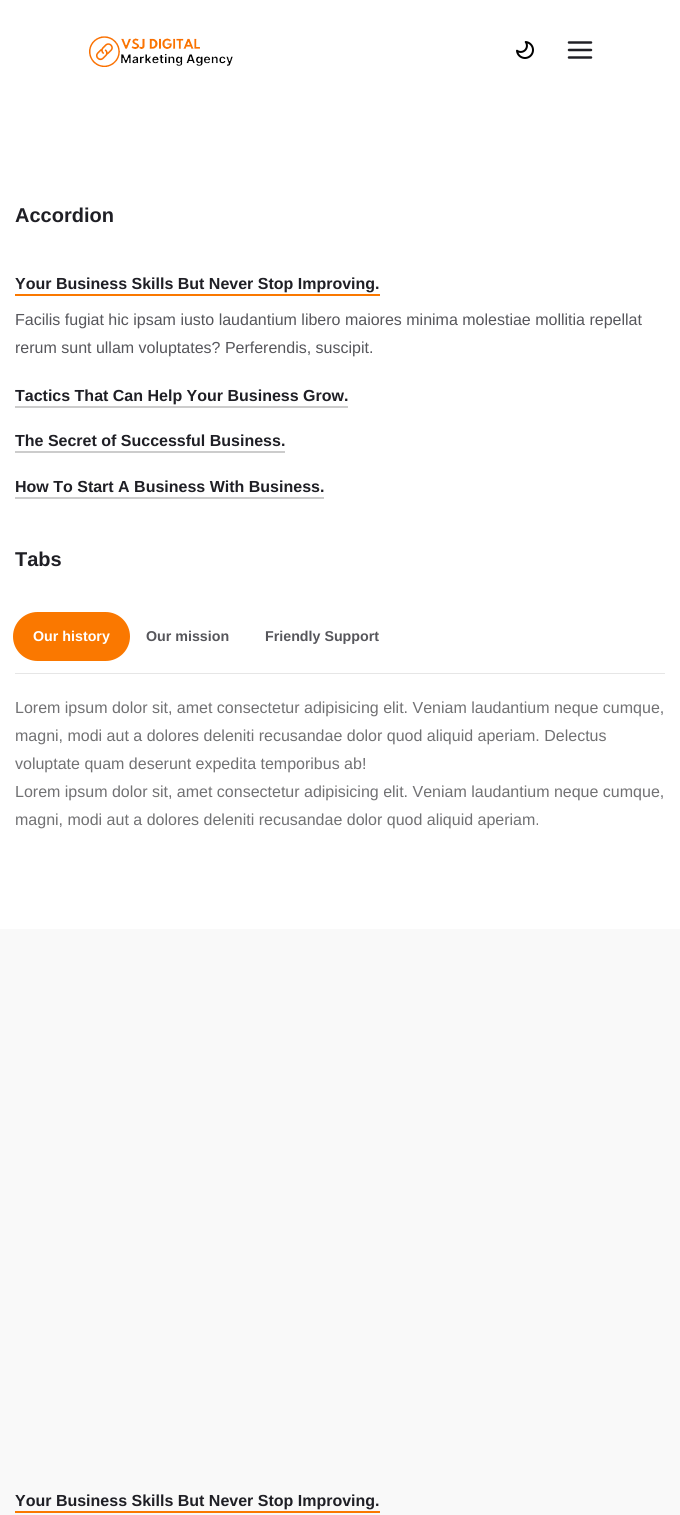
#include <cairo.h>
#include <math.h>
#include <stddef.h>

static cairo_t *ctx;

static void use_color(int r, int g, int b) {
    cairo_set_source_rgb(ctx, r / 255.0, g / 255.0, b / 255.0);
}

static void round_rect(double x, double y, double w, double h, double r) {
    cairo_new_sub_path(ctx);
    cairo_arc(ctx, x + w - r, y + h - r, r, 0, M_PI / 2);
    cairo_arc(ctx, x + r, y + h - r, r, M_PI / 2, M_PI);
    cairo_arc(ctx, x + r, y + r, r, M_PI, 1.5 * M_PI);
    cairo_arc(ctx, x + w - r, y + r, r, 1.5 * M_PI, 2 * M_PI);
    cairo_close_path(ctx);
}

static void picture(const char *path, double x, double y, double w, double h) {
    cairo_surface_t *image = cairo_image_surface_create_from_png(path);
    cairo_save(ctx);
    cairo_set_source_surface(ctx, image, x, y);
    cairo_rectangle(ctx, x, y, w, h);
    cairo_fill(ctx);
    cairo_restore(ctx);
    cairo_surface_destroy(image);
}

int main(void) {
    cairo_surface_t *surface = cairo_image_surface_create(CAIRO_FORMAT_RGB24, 680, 1515);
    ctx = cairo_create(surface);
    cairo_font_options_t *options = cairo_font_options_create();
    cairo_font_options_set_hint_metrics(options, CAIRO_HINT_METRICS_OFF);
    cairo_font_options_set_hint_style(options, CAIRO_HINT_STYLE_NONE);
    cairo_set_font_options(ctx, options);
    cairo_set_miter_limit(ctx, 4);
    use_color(255, 255, 255);
    cairo_paint(ctx);
    picture("img1.png", 89, 36, 144, 31);
    picture("img2.png", 516, 41, 18, 18);
    cairo_new_path(ctx);
    cairo_move_to(ctx, 569, 50);
    cairo_line_to(ctx, 591, 50);
    cairo_move_to(ctx, 569, 42.5);
    cairo_line_to(ctx, 591, 42.5);
    cairo_move_to(ctx, 569, 57.5);
    cairo_line_to(ctx, 591, 57.5);
    use_color(31, 31, 37);
    cairo_set_line_width(ctx, 2.5);
    cairo_set_line_cap(ctx, CAIRO_LINE_CAP_ROUND);
    cairo_set_line_join(ctx, CAIRO_LINE_JOIN_ROUND);
    cairo_stroke(ctx);
    cairo_select_font_face(ctx, "Liberation Sans", CAIRO_FONT_SLANT_NORMAL, CAIRO_FONT_WEIGHT_BOLD);
    cairo_set_font_size(ctx, 20);
    cairo_move_to(ctx, 15, 222);
    cairo_show_text(ctx, "Accordion");
    cairo_set_font_size(ctx, 16);
    cairo_move_to(ctx, 15, 289);
    cairo_show_text(ctx, "Your Business Skills But Never Stop Improving.");
    use_color(250, 120, 0);
    cairo_rectangle(ctx, 15, 294, 365, 2);
    cairo_fill(ctx);
    cairo_select_font_face(ctx, "Liberation Sans", CAIRO_FONT_SLANT_NORMAL, CAIRO_FONT_WEIGHT_NORMAL);
    use_color(86, 86, 91);
    cairo_move_to(ctx, 15, 325);
    cairo_show_text(ctx, "Facilis fugiat hic ipsam iusto laudantium libero maiores minima molestiae mollitia repellat");
    cairo_move_to(ctx, 15, 353);
    cairo_show_text(ctx, "rerum sunt ullam voluptates? Perferendis, suscipit.");
    cairo_select_font_face(ctx, "Liberation Sans", CAIRO_FONT_SLANT_NORMAL, CAIRO_FONT_WEIGHT_BOLD);
    use_color(31, 31, 37);
    cairo_move_to(ctx, 15, 401);
    cairo_show_text(ctx, "Tactics That Can Help Your Business Grow.");
    use_color(204, 204, 204);
    cairo_rectangle(ctx, 15, 406, 333, 2);
    cairo_fill(ctx);
    use_color(31, 31, 37);
    cairo_move_to(ctx, 15, 446);
    cairo_show_text(ctx, "The Secret of Successful Business.");
    use_color(204, 204, 204);
    cairo_rectangle(ctx, 15, 451, 270, 2);
    cairo_fill(ctx);
    use_color(31, 31, 37);
    cairo_move_to(ctx, 15, 492);
    cairo_show_text(ctx, "How To Start A Business With Business.");
    use_color(204, 204, 204);
    cairo_rectangle(ctx, 15, 497, 309, 2);
    cairo_fill(ctx);
    cairo_set_font_size(ctx, 20);
    use_color(31, 31, 37);
    cairo_move_to(ctx, 15, 566);
    cairo_show_text(ctx, "Tabs");
    use_color(230, 230, 230);
    cairo_rectangle(ctx, 15, 673, 650, 1);
    cairo_fill(ctx);
    use_color(250, 120, 0);
    round_rect(13, 612, 117, 49, 24.5);
    cairo_fill(ctx);
    cairo_set_font_size(ctx, 14.25);
    use_color(255, 255, 255);
    cairo_move_to(ctx, 33, 641);
    cairo_show_text(ctx, "Our history");
    use_color(86, 86, 91);
    cairo_move_to(ctx, 146, 641);
    cairo_show_text(ctx, "Our mission");
    cairo_move_to(ctx, 265, 641);
    cairo_show_text(ctx, "Friendly Support");
    cairo_select_font_face(ctx, "Liberation Sans", CAIRO_FONT_SLANT_NORMAL, CAIRO_FONT_WEIGHT_NORMAL);
    cairo_set_font_size(ctx, 16);
    use_color(113, 113, 115);
    cairo_move_to(ctx, 15, 713);
    cairo_show_text(ctx, "Lorem ipsum dolor sit, amet consectetur adipisicing elit. Veniam laudantium neque cumque,");
    cairo_move_to(ctx, 15, 741);
    cairo_show_text(ctx, "magni, modi aut a dolores deleniti recusandae dolor quod aliquid aperiam. Delectus");
    cairo_move_to(ctx, 15, 769);
    cairo_show_text(ctx, "voluptate quam deserunt expedita temporibus ab!");
    cairo_move_to(ctx, 15, 797);
    cairo_show_text(ctx, "Lorem ipsum dolor sit, amet consectetur adipisicing elit. Veniam laudantium neque cumque,");
    cairo_move_to(ctx, 15, 825);
    cairo_show_text(ctx, "magni, modi aut a dolores deleniti recusandae dolor quod aliquid aperiam.");
    use_color(249, 249, 249);
    cairo_rectangle(ctx, 0, 929, 680, 586);
    cairo_fill(ctx);
    cairo_select_font_face(ctx, "Liberation Sans", CAIRO_FONT_SLANT_NORMAL, CAIRO_FONT_WEIGHT_BOLD);
    use_color(31, 31, 37);
    cairo_move_to(ctx, 15, 1506);
    cairo_show_text(ctx, "Your Business Skills But Never Stop Improving.");
    use_color(250, 120, 0);
    cairo_rectangle(ctx, 15, 1511, 365, 2);
    cairo_fill(ctx);
    cairo_surface_write_to_png(surface, "result.png");
    cairo_font_options_destroy(options);
    cairo_destroy(ctx);
    cairo_surface_destroy(surface);
    return 0;
}
